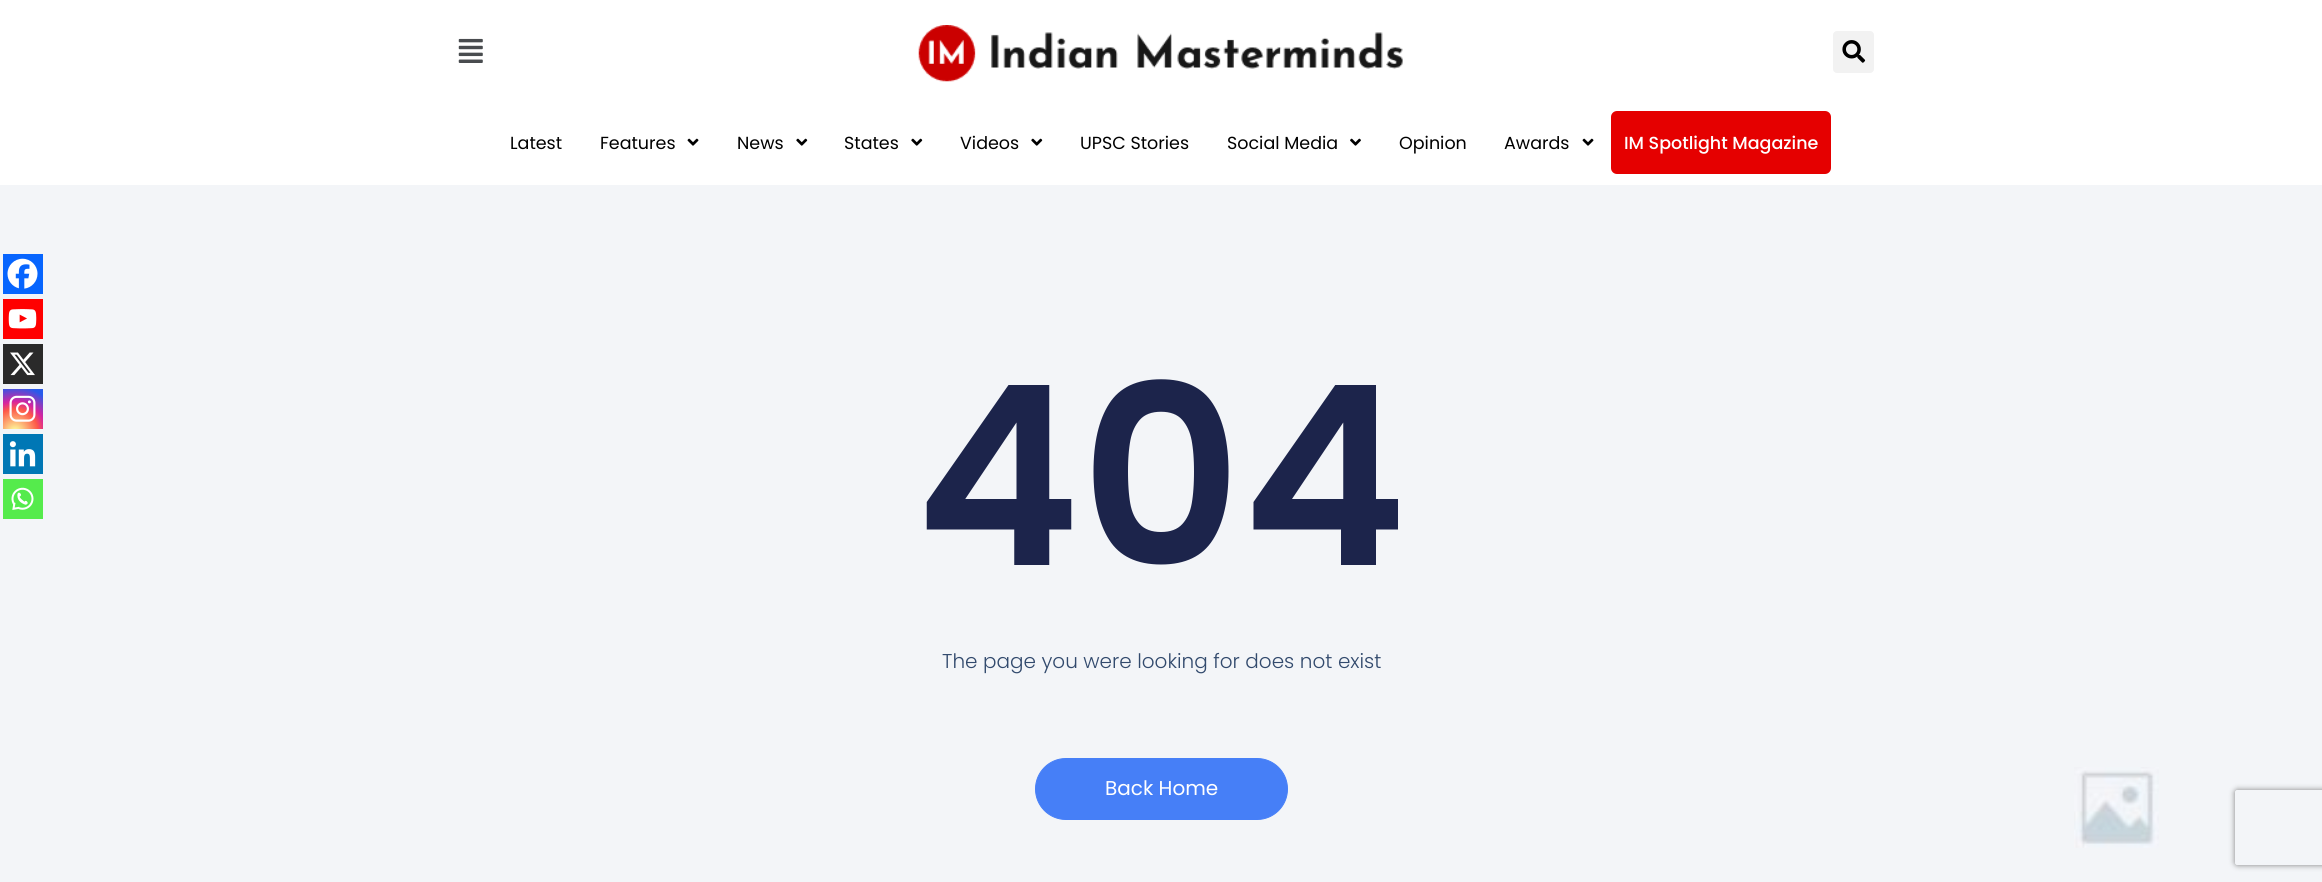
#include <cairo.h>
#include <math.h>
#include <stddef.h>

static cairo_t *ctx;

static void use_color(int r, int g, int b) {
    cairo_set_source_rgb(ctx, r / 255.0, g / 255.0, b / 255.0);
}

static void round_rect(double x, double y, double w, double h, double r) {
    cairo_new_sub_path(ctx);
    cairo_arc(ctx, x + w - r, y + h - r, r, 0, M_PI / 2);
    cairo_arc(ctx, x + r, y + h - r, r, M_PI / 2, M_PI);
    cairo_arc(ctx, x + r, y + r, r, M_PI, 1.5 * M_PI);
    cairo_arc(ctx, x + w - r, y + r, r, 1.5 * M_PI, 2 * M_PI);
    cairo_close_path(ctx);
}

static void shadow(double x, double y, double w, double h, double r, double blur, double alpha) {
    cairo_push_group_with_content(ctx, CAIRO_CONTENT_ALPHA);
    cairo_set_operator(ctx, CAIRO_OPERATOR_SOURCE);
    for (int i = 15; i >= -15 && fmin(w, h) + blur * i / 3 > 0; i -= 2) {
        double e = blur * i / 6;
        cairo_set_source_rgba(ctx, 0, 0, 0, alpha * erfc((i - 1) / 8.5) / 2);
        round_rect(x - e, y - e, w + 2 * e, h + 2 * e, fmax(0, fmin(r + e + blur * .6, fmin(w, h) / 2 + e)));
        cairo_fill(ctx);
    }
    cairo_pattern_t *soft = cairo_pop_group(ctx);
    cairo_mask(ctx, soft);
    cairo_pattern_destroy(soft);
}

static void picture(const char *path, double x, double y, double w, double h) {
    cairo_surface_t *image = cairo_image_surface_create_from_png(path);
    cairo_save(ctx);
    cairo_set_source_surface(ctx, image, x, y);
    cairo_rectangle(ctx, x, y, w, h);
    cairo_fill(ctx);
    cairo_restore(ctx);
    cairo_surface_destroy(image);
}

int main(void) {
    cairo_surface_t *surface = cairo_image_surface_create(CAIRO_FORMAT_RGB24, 2322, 882);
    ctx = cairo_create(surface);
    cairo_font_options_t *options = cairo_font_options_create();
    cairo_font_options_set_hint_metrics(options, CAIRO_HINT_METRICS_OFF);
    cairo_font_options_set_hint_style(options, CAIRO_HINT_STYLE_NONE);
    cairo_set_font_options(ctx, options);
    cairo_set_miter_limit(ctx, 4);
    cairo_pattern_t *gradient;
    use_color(255, 255, 255);
    cairo_paint(ctx);
    picture("img1.png", 458, 38, 25, 25);
    picture("img2.png", 918, 25, 485, 57);
    use_color(242, 242, 242);
    round_rect(1833, 31, 41, 42, 4);
    cairo_fill(ctx);
    picture("img3.png", 1842, 40, 24, 23);
    cairo_select_font_face(ctx, "Poppins", CAIRO_FONT_SLANT_NORMAL, CAIRO_FONT_WEIGHT_NORMAL);
    cairo_set_font_size(ctx, 17.5);
    use_color(0, 0, 0);
    cairo_move_to(ctx, 510, 149);
    cairo_show_text(ctx, "Latest");
    cairo_move_to(ctx, 600, 149);
    cairo_show_text(ctx, "Features");
    picture("img4.png", 687, 138, 12, 8);
    cairo_move_to(ctx, 737, 149);
    cairo_show_text(ctx, "News");
    picture("img5.png", 796, 138, 12, 8);
    cairo_move_to(ctx, 844, 149);
    cairo_show_text(ctx, "States");
    picture("img5.png", 911, 138, 12, 8);
    cairo_move_to(ctx, 960, 149);
    cairo_show_text(ctx, "Videos");
    picture("img5.png", 1031, 138, 12, 8);
    cairo_move_to(ctx, 1080, 149);
    cairo_show_text(ctx, "UPSC Stories");
    cairo_move_to(ctx, 1227, 149);
    cairo_show_text(ctx, "Social Media");
    picture("img6.png", 1350, 138, 11, 8);
    cairo_move_to(ctx, 1399, 149);
    cairo_show_text(ctx, "Opinion");
    cairo_move_to(ctx, 1504, 149);
    cairo_show_text(ctx, "Awards");
    picture("img4.png", 1582, 138, 12, 8);
    use_color(229, 0, 0);
    round_rect(1611, 111, 220, 63, 6);
    cairo_fill(ctx);
    cairo_select_font_face(ctx, "Poppins Medium", CAIRO_FONT_SLANT_NORMAL, CAIRO_FONT_WEIGHT_NORMAL);
    use_color(255, 255, 255);
    cairo_move_to(ctx, 1624, 149);
    cairo_show_text(ctx, "IM Spotlight Magazine");
    use_color(243, 245, 248);
    cairo_rectangle(ctx, 0, 185, 2322, 697);
    cairo_fill(ctx);
    use_color(7, 101, 254);
    cairo_rectangle(ctx, 3, 254, 40, 40);
    cairo_fill(ctx);
    picture("img7.png", 7, 258, 31, 31);
    use_color(255, 0, 0);
    cairo_rectangle(ctx, 3, 299, 40, 40);
    cairo_fill(ctx);
    picture("img8.png", 8, 309, 29, 20);
    use_color(42, 42, 42);
    cairo_rectangle(ctx, 3, 344, 40, 40);
    cairo_fill(ctx);
    picture("img9.png", 10, 352, 25, 24);
    gradient = cairo_pattern_create_radial(15, 432, 0, 15, 432, 51);
    cairo_pattern_add_color_stop_rgba(gradient, 0, 0.992, 0.957, 0.592, 1);
    cairo_pattern_add_color_stop_rgba(gradient, 0.05, 0.992, 0.957, 0.592, 1);
    cairo_pattern_add_color_stop_rgba(gradient, 0.45, 0.992, 0.349, 0.286, 1);
    cairo_pattern_add_color_stop_rgba(gradient, 0.6, 0.839, 0.141, 0.624, 1);
    cairo_pattern_add_color_stop_rgba(gradient, 0.9, 0.157, 0.353, 0.922, 1);
    cairo_set_source(ctx, gradient);
    cairo_pattern_destroy(gradient);
    cairo_rectangle(ctx, 3, 389, 40, 40);
    cairo_fill(ctx);
    picture("img10.png", 9, 395, 27, 27);
    use_color(0, 119, 181);
    cairo_rectangle(ctx, 3, 434, 40, 40);
    cairo_fill(ctx);
    picture("img11.png", 9, 441, 27, 26);
    use_color(85, 235, 76);
    cairo_rectangle(ctx, 3, 479, 40, 40);
    cairo_fill(ctx);
    picture("img12.png", 11, 487, 23, 23);
    picture("img13.png", 2074, 767, 85, 81);
    cairo_select_font_face(ctx, "Poppins SemiBold", CAIRO_FONT_SLANT_NORMAL, CAIRO_FONT_WEIGHT_NORMAL);
    cairo_set_font_size(ctx, 250);
    use_color(28, 36, 75);
    cairo_move_to(ctx, 915, 565);
    cairo_show_text(ctx, "404");
    cairo_select_font_face(ctx, "Poppins Light", CAIRO_FONT_SLANT_NORMAL, CAIRO_FONT_WEIGHT_NORMAL);
    cairo_set_font_size(ctx, 20);
    use_color(50, 74, 109);
    cairo_move_to(ctx, 942, 668);
    cairo_show_text(ctx, "The page you were looking for does not exist");
    use_color(70, 127, 247);
    round_rect(1035.5, 758.5, 252, 61, 30.5);
    cairo_fill_preserve(ctx);
    cairo_set_line_width(ctx, 1);
    cairo_stroke(ctx);
    cairo_select_font_face(ctx, "Poppins", CAIRO_FONT_SLANT_NORMAL, CAIRO_FONT_WEIGHT_NORMAL);
    use_color(255, 255, 255);
    cairo_move_to(ctx, 1105, 795);
    cairo_show_text(ctx, "Back Home");
    cairo_save(ctx);
    cairo_set_fill_rule(ctx, CAIRO_FILL_RULE_EVEN_ODD);
    cairo_new_path(ctx);
    cairo_move_to(ctx, 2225, 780);
    cairo_line_to(ctx, 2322, 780);
    cairo_line_to(ctx, 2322, 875);
    cairo_line_to(ctx, 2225, 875);
    cairo_close_path(ctx);
    cairo_move_to(ctx, 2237.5, 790);
    cairo_line_to(ctx, 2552.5, 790);
    cairo_curve_to(ctx, 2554, 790, 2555, 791, 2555, 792.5);
    cairo_line_to(ctx, 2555, 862.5);
    cairo_curve_to(ctx, 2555, 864, 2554, 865, 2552.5, 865);
    cairo_line_to(ctx, 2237.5, 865);
    cairo_curve_to(ctx, 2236, 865, 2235, 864, 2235, 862.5);
    cairo_line_to(ctx, 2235, 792.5);
    cairo_curve_to(ctx, 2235, 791, 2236, 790, 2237.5, 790);
    cairo_close_path(ctx);
    cairo_clip(ctx);
    use_color(128, 128, 128);
    shadow(2235, 790, 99, 75, 2.5, 3, 1);
    cairo_restore(ctx);
    cairo_surface_write_to_png(surface, "result.png");
    cairo_font_options_destroy(options);
    cairo_destroy(ctx);
    cairo_surface_destroy(surface);
    return 0;
}
